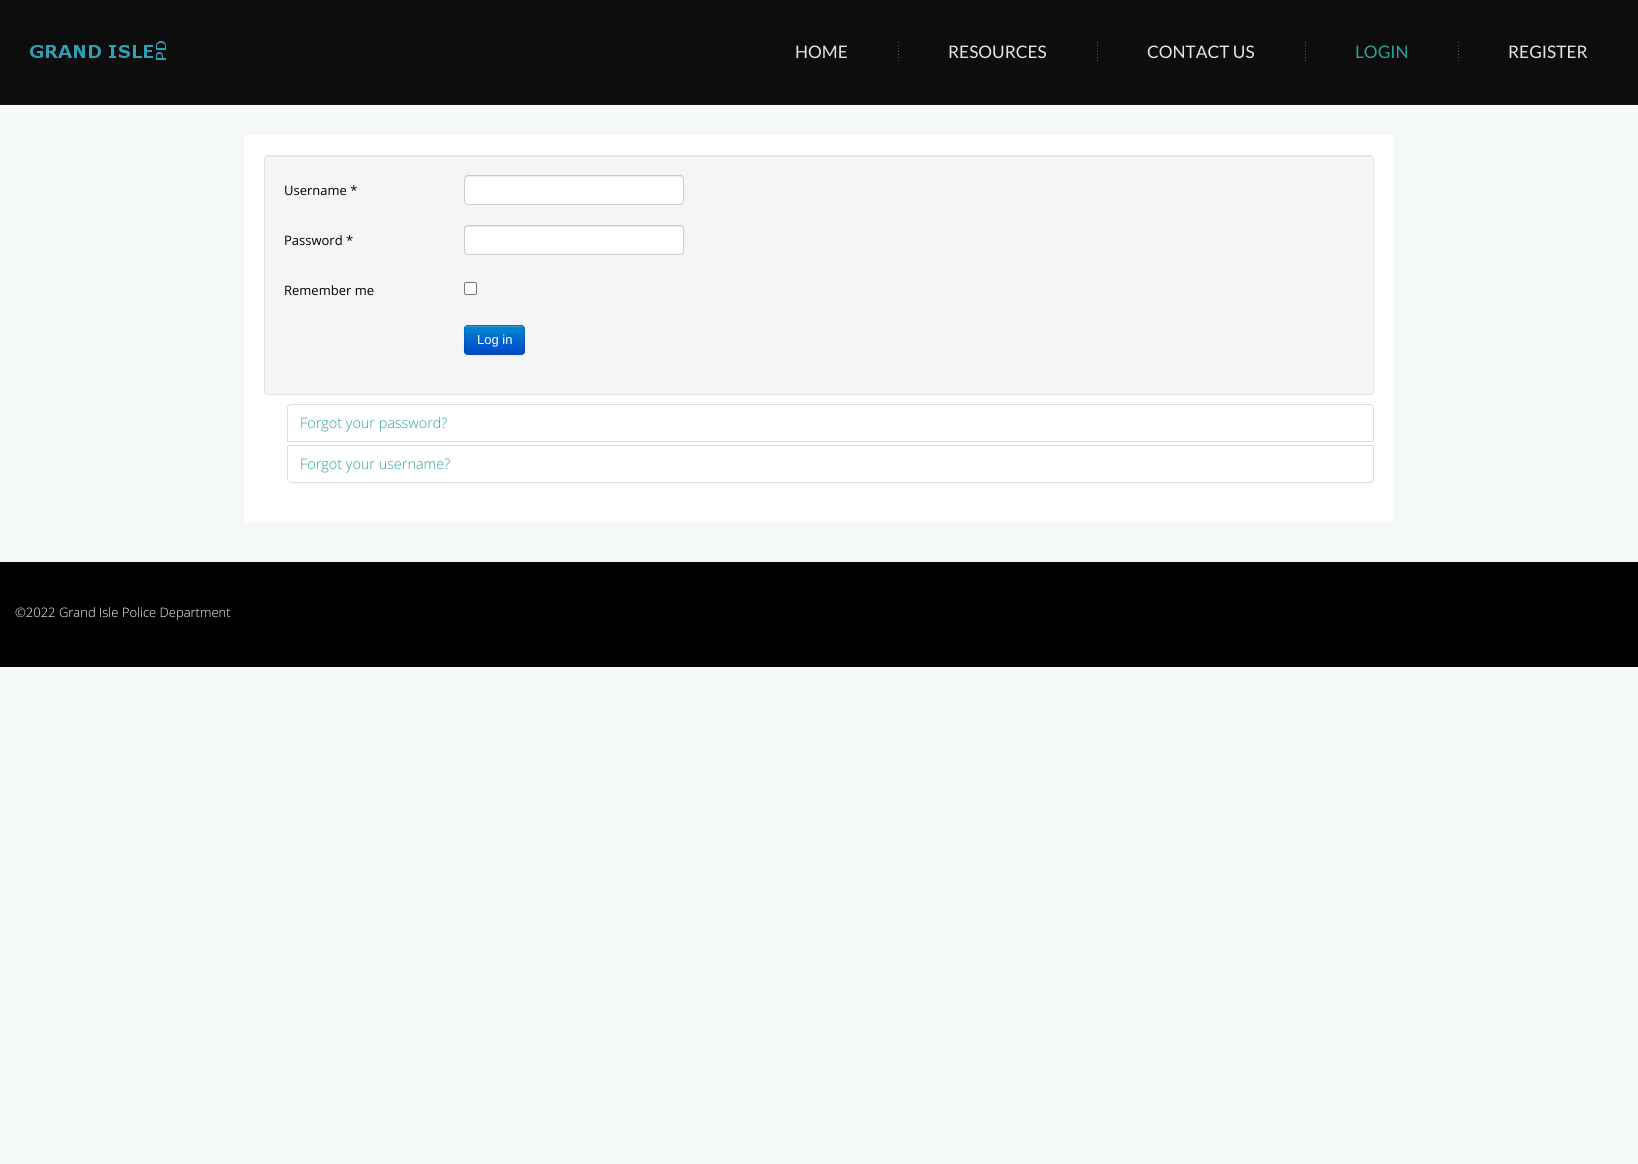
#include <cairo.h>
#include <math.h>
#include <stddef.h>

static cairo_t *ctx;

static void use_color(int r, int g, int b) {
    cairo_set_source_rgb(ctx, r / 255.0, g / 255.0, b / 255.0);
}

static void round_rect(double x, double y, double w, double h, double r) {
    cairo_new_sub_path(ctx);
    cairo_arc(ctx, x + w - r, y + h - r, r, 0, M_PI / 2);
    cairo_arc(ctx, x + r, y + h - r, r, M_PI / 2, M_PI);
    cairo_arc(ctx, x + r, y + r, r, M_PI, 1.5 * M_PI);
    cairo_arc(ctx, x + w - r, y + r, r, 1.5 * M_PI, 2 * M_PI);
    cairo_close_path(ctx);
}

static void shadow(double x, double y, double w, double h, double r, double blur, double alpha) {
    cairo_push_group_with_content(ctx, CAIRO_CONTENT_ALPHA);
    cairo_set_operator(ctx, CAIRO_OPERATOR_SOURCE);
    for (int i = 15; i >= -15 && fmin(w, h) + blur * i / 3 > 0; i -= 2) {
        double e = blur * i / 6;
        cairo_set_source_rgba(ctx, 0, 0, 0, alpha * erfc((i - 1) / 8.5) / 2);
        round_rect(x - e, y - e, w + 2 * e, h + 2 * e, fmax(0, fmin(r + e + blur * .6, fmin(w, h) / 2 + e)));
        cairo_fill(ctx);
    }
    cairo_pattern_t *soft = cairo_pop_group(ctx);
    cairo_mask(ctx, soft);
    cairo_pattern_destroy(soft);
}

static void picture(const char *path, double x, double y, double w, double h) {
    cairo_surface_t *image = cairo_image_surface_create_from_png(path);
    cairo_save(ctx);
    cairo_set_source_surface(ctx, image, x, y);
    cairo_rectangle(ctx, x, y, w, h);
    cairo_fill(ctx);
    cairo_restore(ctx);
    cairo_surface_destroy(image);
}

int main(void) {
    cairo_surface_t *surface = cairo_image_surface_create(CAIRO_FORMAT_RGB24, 1638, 1164);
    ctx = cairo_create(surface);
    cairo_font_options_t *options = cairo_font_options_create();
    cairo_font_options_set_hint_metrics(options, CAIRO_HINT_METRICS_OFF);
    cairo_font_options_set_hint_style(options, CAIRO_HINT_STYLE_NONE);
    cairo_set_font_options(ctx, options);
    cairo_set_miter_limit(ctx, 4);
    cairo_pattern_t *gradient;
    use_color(245, 248, 249);
    cairo_paint(ctx);
    use_color(13, 13, 13);
    cairo_rectangle(ctx, 0, 0, 1638, 104);
    cairo_fill(ctx);
    use_color(25, 25, 25);
    cairo_rectangle(ctx, 0, 104, 1638, 1);
    cairo_fill(ctx);
    picture("img1.png", 30, 41, 136, 19);
    cairo_select_font_face(ctx, "Lato", CAIRO_FONT_SLANT_NORMAL, CAIRO_FONT_WEIGHT_NORMAL);
    cairo_set_font_size(ctx, 17.25);
    use_color(229, 229, 229);
    cairo_move_to(ctx, 795, 58);
    cairo_show_text(ctx, "HOME");
    picture("img2.png", 898, 42, 1, 19);
    cairo_move_to(ctx, 948, 58);
    cairo_show_text(ctx, "RESOURCES");
    picture("img2.png", 1097, 42, 1, 19);
    cairo_move_to(ctx, 1147, 58);
    cairo_show_text(ctx, "CONTACT US");
    picture("img2.png", 1305, 42, 1, 19);
    use_color(45, 160, 153);
    cairo_move_to(ctx, 1355, 58);
    cairo_show_text(ctx, "LOGIN");
    picture("img2.png", 1458, 42, 1, 19);
    use_color(229, 229, 229);
    cairo_move_to(ctx, 1508, 58);
    cairo_show_text(ctx, "REGISTER");
    use_color(255, 255, 255);
    cairo_rectangle(ctx, 244, 135, 1150, 387);
    cairo_fill(ctx);
    use_color(245, 245, 245);
    round_rect(264, 155, 1110, 240, 4);
    cairo_fill(ctx);
    use_color(233, 233, 233);
    cairo_new_path(ctx);
    cairo_move_to(ctx, 268, 157);
    cairo_line_to(ctx, 1370, 157);
    cairo_curve_to(ctx, 1372, 157, 1373, 158, 1373, 160);
    cairo_line_to(ctx, 1373, 159);
    cairo_curve_to(ctx, 1373, 157, 1372, 156, 1370, 156);
    cairo_line_to(ctx, 268, 156);
    cairo_curve_to(ctx, 266, 156, 265, 157, 265, 159);
    cairo_line_to(ctx, 265, 160);
    cairo_curve_to(ctx, 265, 158, 266, 157, 268, 157);
    cairo_close_path(ctx);
    cairo_fill(ctx);
    round_rect(264.5, 155.5, 1109, 239, 3.5);
    use_color(227, 227, 227);
    cairo_set_line_width(ctx, 1);
    cairo_stroke(ctx);
    cairo_select_font_face(ctx, "Open Sans", CAIRO_FONT_SLANT_NORMAL, CAIRO_FONT_WEIGHT_NORMAL);
    cairo_set_font_size(ctx, 13);
    use_color(0, 0, 0);
    cairo_move_to(ctx, 284, 195);
    cairo_show_text(ctx, "Username *");
    use_color(255, 255, 255);
    round_rect(464, 175, 220, 30, 4);
    cairo_fill(ctx);
    use_color(236, 236, 236);
    cairo_new_path(ctx);
    cairo_move_to(ctx, 468, 177);
    cairo_line_to(ctx, 680, 177);
    cairo_curve_to(ctx, 682, 177, 683, 178, 683, 180);
    cairo_line_to(ctx, 683, 179);
    cairo_curve_to(ctx, 683, 177, 682, 176, 680, 176);
    cairo_line_to(ctx, 468, 176);
    cairo_curve_to(ctx, 466, 176, 465, 177, 465, 179);
    cairo_line_to(ctx, 465, 180);
    cairo_curve_to(ctx, 465, 178, 466, 177, 468, 177);
    cairo_close_path(ctx);
    cairo_fill(ctx);
    round_rect(464.5, 175.5, 219, 29, 3.5);
    use_color(204, 204, 204);
    cairo_stroke(ctx);
    use_color(0, 0, 0);
    cairo_move_to(ctx, 284, 245);
    cairo_show_text(ctx, "Password *");
    use_color(255, 255, 255);
    round_rect(464, 225, 220, 30, 4);
    cairo_fill(ctx);
    use_color(236, 236, 236);
    cairo_new_path(ctx);
    cairo_move_to(ctx, 468, 227);
    cairo_line_to(ctx, 680, 227);
    cairo_curve_to(ctx, 682, 227, 683, 228, 683, 230);
    cairo_line_to(ctx, 683, 229);
    cairo_curve_to(ctx, 683, 227, 682, 226, 680, 226);
    cairo_line_to(ctx, 468, 226);
    cairo_curve_to(ctx, 466, 226, 465, 227, 465, 229);
    cairo_line_to(ctx, 465, 230);
    cairo_curve_to(ctx, 465, 228, 466, 227, 468, 227);
    cairo_close_path(ctx);
    cairo_fill(ctx);
    round_rect(464.5, 225.5, 219, 29, 3.5);
    use_color(204, 204, 204);
    cairo_stroke(ctx);
    use_color(0, 0, 0);
    cairo_move_to(ctx, 284, 295);
    cairo_show_text(ctx, "Remember me");
    use_color(255, 255, 255);
    round_rect(464.5, 282.5, 12, 12, 1.5);
    cairo_fill_preserve(ctx);
    use_color(118, 118, 118);
    cairo_stroke(ctx);
    use_color(0, 0, 0);
    shadow(464, 326, 61, 30, 4, 1, 0.05);
    use_color(0, 109, 204);
    round_rect(464, 325, 61, 30, 4);
    cairo_fill(ctx);
    cairo_save(ctx);
    round_rect(464, 325, 61, 30, 4);
    cairo_clip(ctx);
    gradient = cairo_pattern_create_linear(495, 326, 495, 354);
    cairo_pattern_add_color_stop_rgba(gradient, 0, 0, 0.533, 0.8, 1);
    cairo_pattern_add_color_stop_rgba(gradient, 1, 0, 0.267, 0.8, 1);
    cairo_set_source(ctx, gradient);
    cairo_pattern_destroy(gradient);
    cairo_rectangle(ctx, 464, 326, 61, 28);
    cairo_fill(ctx);
    cairo_restore(ctx);
    use_color(51, 159, 214);
    cairo_new_path(ctx);
    cairo_move_to(ctx, 468, 327);
    cairo_line_to(ctx, 521, 327);
    cairo_curve_to(ctx, 523, 327, 524, 328, 524, 330);
    cairo_curve_to(ctx, 524, 324, 517, 326, 512, 326);
    cairo_line_to(ctx, 477, 326);
    cairo_curve_to(ctx, 472, 326, 465, 324, 465, 330);
    cairo_curve_to(ctx, 465, 328, 466, 327, 468, 327);
    cairo_close_path(ctx);
    cairo_fill(ctx);
    cairo_new_path(ctx);
    cairo_move_to(ctx, 523.5, 353.5);
    cairo_line_to(ctx, 521.5, 354.5);
    cairo_line_to(ctx, 467.5, 354.5);
    cairo_line_to(ctx, 465.5, 353.5);
    cairo_set_source_rgba(ctx, 0, 0, 0, 0.25);
    cairo_stroke(ctx);
    cairo_new_path(ctx);
    cairo_move_to(ctx, 465.5, 353.5);
    cairo_curve_to(ctx, 463.5, 351.5, 464.5, 343, 464.5, 340);
    cairo_curve_to(ctx, 464.5, 324.5, 462, 325.5, 477, 325.5);
    cairo_line_to(ctx, 512, 325.5);
    cairo_curve_to(ctx, 527, 325.5, 524.5, 324.5, 524.5, 340);
    cairo_curve_to(ctx, 524.5, 343, 525.5, 351.5, 523.5, 353.5);
    cairo_set_source_rgba(ctx, 0, 0, 0, 0.1);
    cairo_stroke(ctx);
    cairo_select_font_face(ctx, "Liberation Sans", CAIRO_FONT_SLANT_NORMAL, CAIRO_FONT_WEIGHT_NORMAL);
    use_color(255, 255, 255);
    cairo_move_to(ctx, 477, 344);
    cairo_show_text(ctx, "Log in");
    cairo_new_path(ctx);
    cairo_move_to(ctx, 291, 404.5);
    cairo_line_to(ctx, 1370, 404.5);
    cairo_curve_to(ctx, 1372, 404.5, 1373.5, 406, 1373.5, 408);
    cairo_line_to(ctx, 1373.5, 441.5);
    cairo_line_to(ctx, 287.5, 441.5);
    cairo_line_to(ctx, 287.5, 408);
    cairo_curve_to(ctx, 287.5, 406, 289, 404.5, 291, 404.5);
    cairo_close_path(ctx);
    use_color(221, 221, 221);
    cairo_stroke(ctx);
    cairo_select_font_face(ctx, "Open Sans Light", CAIRO_FONT_SLANT_NORMAL, CAIRO_FONT_WEIGHT_NORMAL);
    cairo_set_font_size(ctx, 14.4);
    use_color(45, 160, 153);
    cairo_move_to(ctx, 300, 428);
    cairo_show_text(ctx, "Forgot your password?");
    cairo_new_path(ctx);
    cairo_move_to(ctx, 287.5, 445.5);
    cairo_line_to(ctx, 1373.5, 445.5);
    cairo_line_to(ctx, 1373.5, 479);
    cairo_curve_to(ctx, 1373.5, 481, 1372, 482.5, 1370, 482.5);
    cairo_line_to(ctx, 291, 482.5);
    cairo_curve_to(ctx, 289, 482.5, 287.5, 481, 287.5, 479);
    cairo_close_path(ctx);
    use_color(221, 221, 221);
    cairo_stroke(ctx);
    use_color(45, 160, 153);
    cairo_move_to(ctx, 300, 469);
    cairo_show_text(ctx, "Forgot your username?");
    use_color(0, 0, 0);
    cairo_rectangle(ctx, 0, 562, 1638, 105);
    cairo_fill(ctx);
    cairo_set_font_size(ctx, 13);
    use_color(255, 255, 255);
    cairo_move_to(ctx, 15, 617);
    cairo_show_text(ctx, "©2022 Grand Isle Police Department");
    cairo_surface_write_to_png(surface, "result.png");
    cairo_font_options_destroy(options);
    cairo_destroy(ctx);
    cairo_surface_destroy(surface);
    return 0;
}
